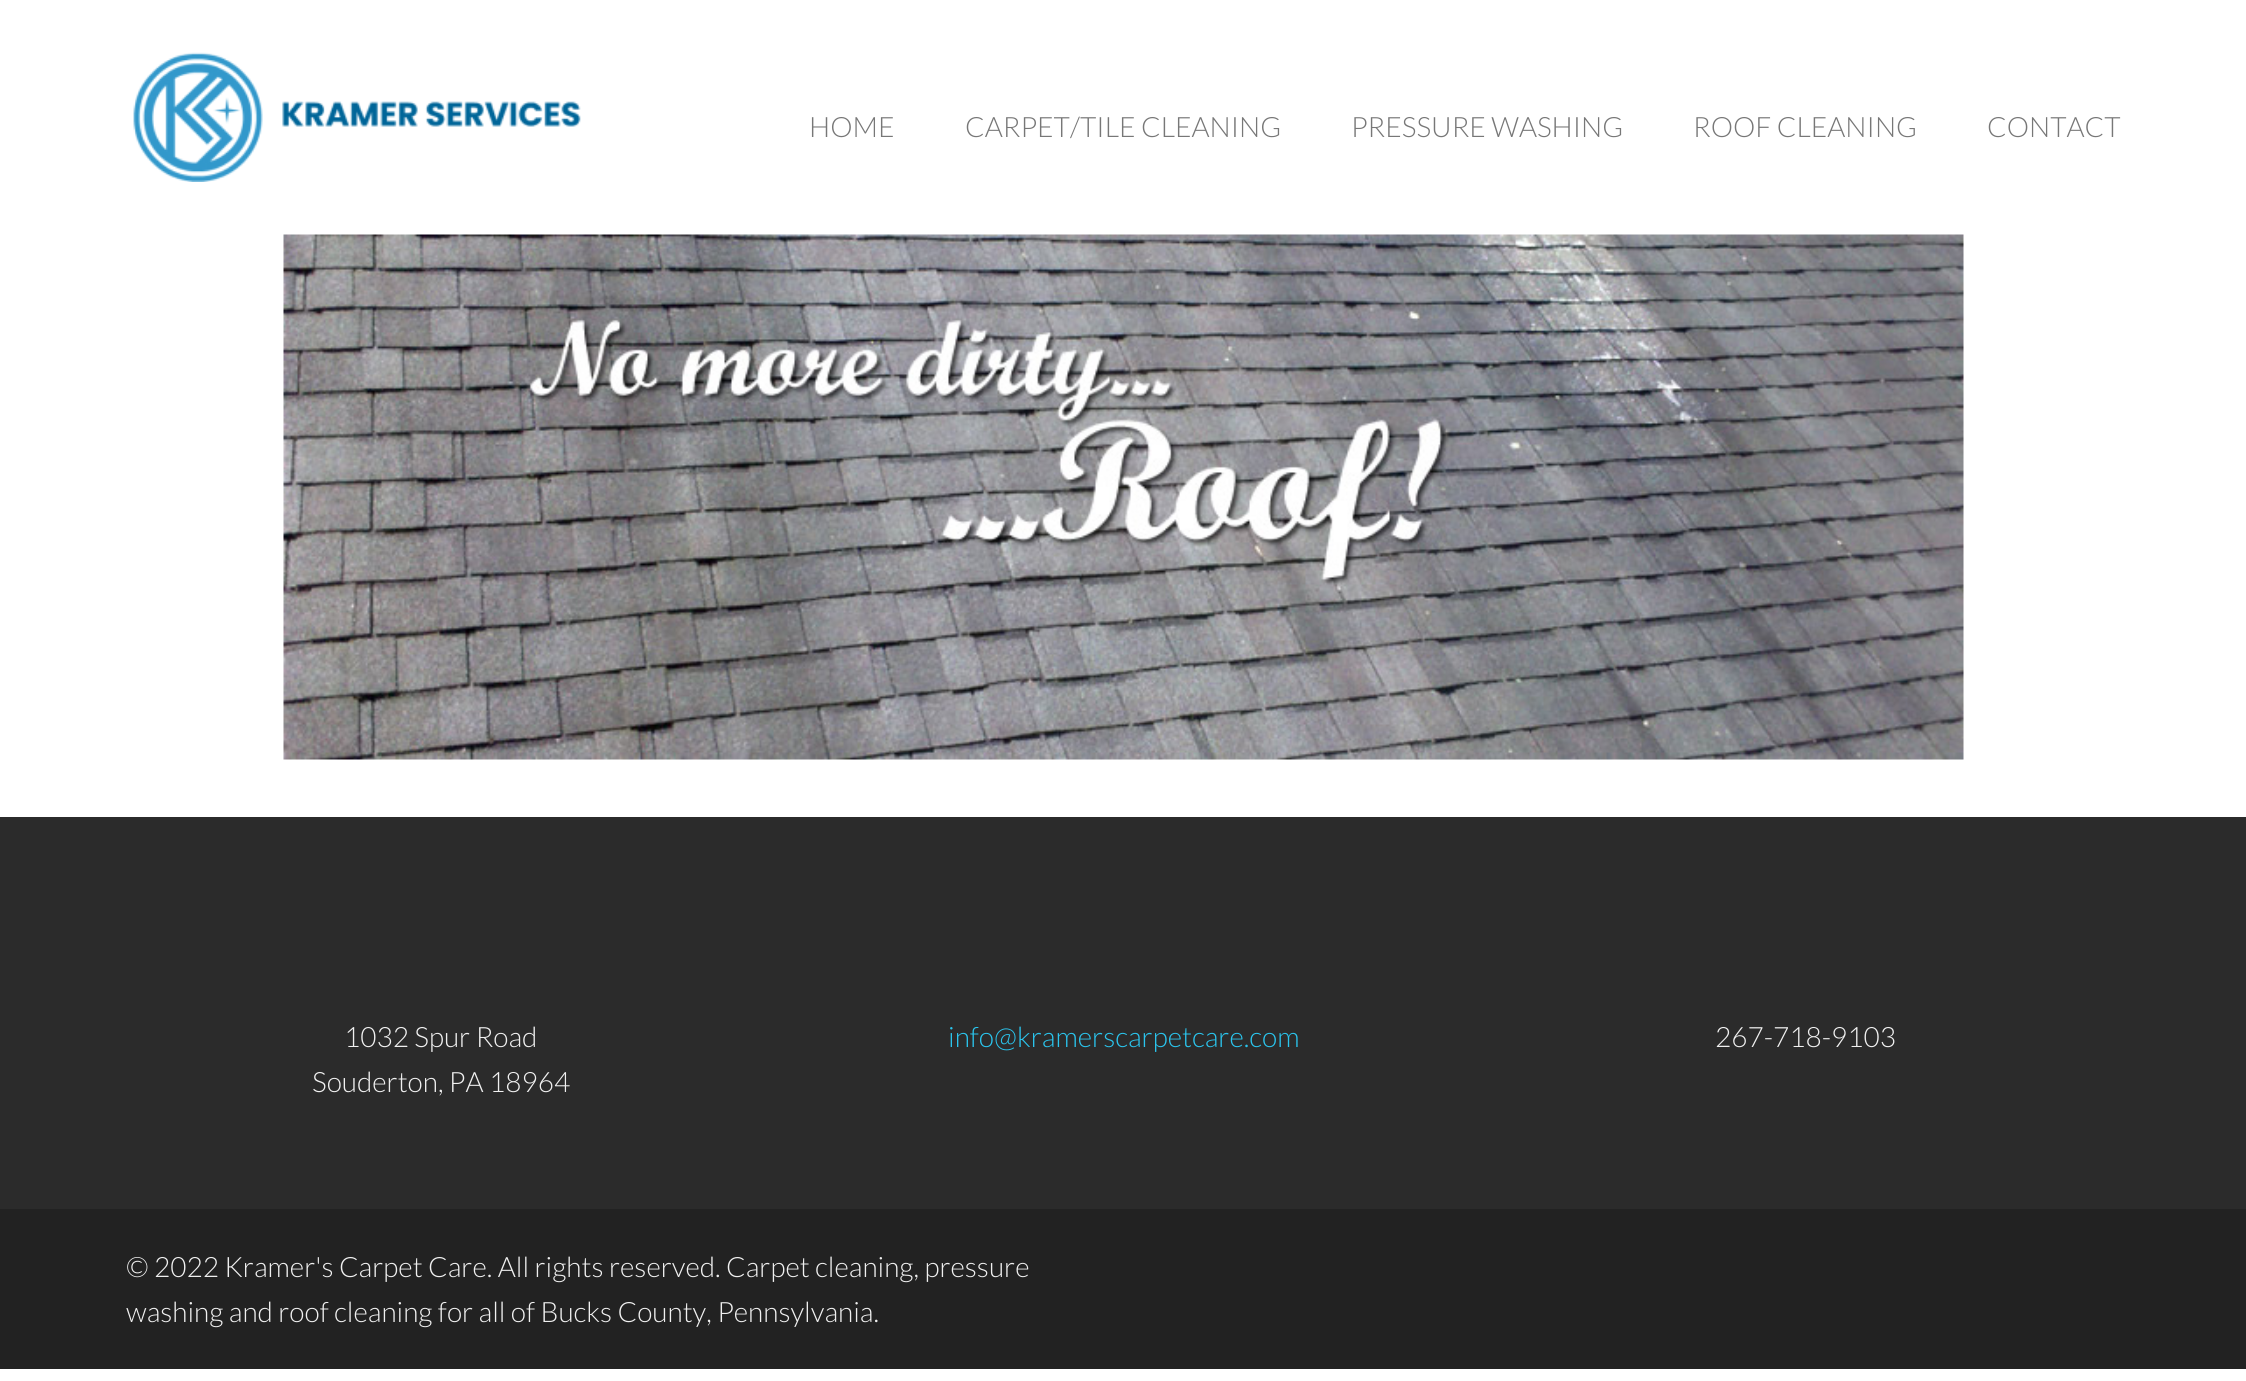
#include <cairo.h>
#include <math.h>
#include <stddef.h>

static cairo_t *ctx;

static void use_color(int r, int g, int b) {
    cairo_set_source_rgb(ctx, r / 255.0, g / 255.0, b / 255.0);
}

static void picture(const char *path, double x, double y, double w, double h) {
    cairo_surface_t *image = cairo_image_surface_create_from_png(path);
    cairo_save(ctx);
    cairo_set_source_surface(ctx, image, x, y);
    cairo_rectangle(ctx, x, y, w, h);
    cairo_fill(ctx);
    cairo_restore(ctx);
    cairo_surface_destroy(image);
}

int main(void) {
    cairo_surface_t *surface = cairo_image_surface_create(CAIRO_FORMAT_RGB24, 2246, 1381);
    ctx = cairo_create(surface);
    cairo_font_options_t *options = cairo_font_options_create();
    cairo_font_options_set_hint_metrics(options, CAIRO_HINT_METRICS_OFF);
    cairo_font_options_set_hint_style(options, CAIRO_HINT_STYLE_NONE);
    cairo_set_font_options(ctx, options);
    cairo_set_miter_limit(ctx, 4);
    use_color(255, 255, 255);
    cairo_paint(ctx);
    picture("img1.png", 133, 52, 448, 130);
    cairo_select_font_face(ctx, "Lato Light", CAIRO_FONT_SLANT_NORMAL, CAIRO_FONT_WEIGHT_NORMAL);
    cairo_set_font_size(ctx, 28);
    use_color(119, 119, 119);
    cairo_move_to(ctx, 809, 137);
    cairo_show_text(ctx, "HOME");
    cairo_move_to(ctx, 965, 137);
    cairo_show_text(ctx, "CARPET/TILE CLEANING");
    cairo_move_to(ctx, 1351, 137);
    cairo_show_text(ctx, "PRESSURE WASHING");
    cairo_move_to(ctx, 1693, 137);
    cairo_show_text(ctx, "ROOF CLEANING");
    cairo_move_to(ctx, 1987, 137);
    cairo_show_text(ctx, "CONTACT");
    picture("img2.png", 283, 234, 1681, 526);
    use_color(43, 43, 43);
    cairo_rectangle(ctx, 0, 817, 2246, 392);
    cairo_fill(ctx);
    use_color(240, 240, 240);
    cairo_move_to(ctx, 344, 1047);
    cairo_show_text(ctx, "1032 Spur Road");
    cairo_move_to(ctx, 312, 1092);
    cairo_show_text(ctx, "Souderton, PA 18964");
    use_color(42, 197, 238);
    cairo_move_to(ctx, 948, 1047);
    cairo_show_text(ctx, "info@kramerscarpetcare.com");
    use_color(240, 240, 240);
    cairo_move_to(ctx, 1715, 1047);
    cairo_show_text(ctx, "267-718-9103");
    use_color(34, 34, 34);
    cairo_rectangle(ctx, 0, 1209, 2246, 160);
    cairo_fill(ctx);
    use_color(240, 240, 240);
    cairo_move_to(ctx, 126, 1277);
    cairo_show_text(ctx, "© 2022 Kramer's Carpet Care. All rights reserved. Carpet cleaning, pressure");
    cairo_move_to(ctx, 126, 1322);
    cairo_show_text(ctx, "washing and roof cleaning for all of Bucks County, Pennsylvania.");
    cairo_surface_write_to_png(surface, "result.png");
    cairo_font_options_destroy(options);
    cairo_destroy(ctx);
    cairo_surface_destroy(surface);
    return 0;
}
